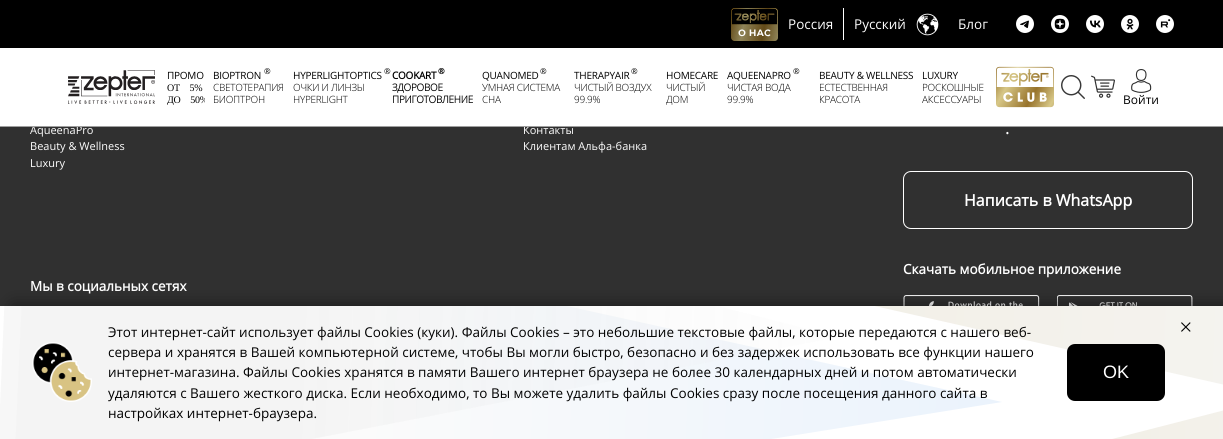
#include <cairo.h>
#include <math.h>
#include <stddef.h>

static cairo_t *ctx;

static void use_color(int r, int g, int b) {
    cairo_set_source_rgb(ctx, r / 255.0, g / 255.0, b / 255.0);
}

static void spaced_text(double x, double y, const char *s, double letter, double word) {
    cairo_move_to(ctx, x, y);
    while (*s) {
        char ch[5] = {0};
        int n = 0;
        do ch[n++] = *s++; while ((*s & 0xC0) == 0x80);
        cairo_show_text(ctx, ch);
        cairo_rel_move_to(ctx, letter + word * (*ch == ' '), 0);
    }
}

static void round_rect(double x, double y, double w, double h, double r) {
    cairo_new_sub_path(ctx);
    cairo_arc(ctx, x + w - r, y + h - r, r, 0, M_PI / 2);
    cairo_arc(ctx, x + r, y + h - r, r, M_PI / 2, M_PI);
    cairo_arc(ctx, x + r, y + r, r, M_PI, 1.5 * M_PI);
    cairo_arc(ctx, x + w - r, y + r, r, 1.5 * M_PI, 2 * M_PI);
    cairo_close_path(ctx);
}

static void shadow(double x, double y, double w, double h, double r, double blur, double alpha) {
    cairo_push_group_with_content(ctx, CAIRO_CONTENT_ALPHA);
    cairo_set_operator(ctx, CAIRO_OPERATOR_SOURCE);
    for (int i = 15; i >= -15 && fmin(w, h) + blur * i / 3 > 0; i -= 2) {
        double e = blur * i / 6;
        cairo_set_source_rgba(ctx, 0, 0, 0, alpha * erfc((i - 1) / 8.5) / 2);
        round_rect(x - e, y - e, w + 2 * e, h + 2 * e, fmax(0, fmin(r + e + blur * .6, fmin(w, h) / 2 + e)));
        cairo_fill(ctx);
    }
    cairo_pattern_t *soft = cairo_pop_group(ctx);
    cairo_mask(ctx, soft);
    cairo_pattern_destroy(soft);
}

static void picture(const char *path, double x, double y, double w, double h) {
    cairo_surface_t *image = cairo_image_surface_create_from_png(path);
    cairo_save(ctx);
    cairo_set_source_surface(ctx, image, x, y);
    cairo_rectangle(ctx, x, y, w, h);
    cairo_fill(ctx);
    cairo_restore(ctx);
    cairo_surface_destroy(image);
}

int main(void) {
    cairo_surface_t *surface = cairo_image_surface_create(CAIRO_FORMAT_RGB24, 1223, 439);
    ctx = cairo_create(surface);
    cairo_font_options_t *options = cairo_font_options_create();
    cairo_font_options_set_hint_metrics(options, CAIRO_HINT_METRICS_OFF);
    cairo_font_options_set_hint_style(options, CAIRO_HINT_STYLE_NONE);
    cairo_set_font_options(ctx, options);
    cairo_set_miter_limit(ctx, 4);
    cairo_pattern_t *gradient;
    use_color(48, 48, 48);
    cairo_paint(ctx);
    use_color(0, 0, 0);
    cairo_rectangle(ctx, 0, 0, 1223, 48);
    cairo_fill(ctx);
    picture("img1.png", 731, 8, 47, 33);
    cairo_select_font_face(ctx, "Open Sans", CAIRO_FONT_SLANT_NORMAL, CAIRO_FONT_WEIGHT_NORMAL);
    cairo_set_font_size(ctx, 13.5);
    use_color(255, 255, 255);
    cairo_move_to(ctx, 788, 29);
    cairo_show_text(ctx, "Россия");
    cairo_rectangle(ctx, 843, 8, 1, 32);
    cairo_fill(ctx);
    cairo_move_to(ctx, 854, 29);
    cairo_show_text(ctx, "Русский");
    picture("img2.png", 916, 13, 23, 23);
    cairo_move_to(ctx, 958, 29);
    cairo_show_text(ctx, "Блог");
    picture("img3.png", 1016, 15, 18, 18);
    picture("img4.png", 1051, 15, 18, 18);
    picture("img5.png", 1086, 15, 18, 18);
    picture("img6.png", 1121, 15, 18, 18);
    picture("img7.png", 1156, 15, 18, 18);
    cairo_rectangle(ctx, 0, 48, 1223, 78);
    cairo_fill(ctx);
    cairo_set_font_size(ctx, 11);
    cairo_move_to(ctx, 30, 134);
    cairo_show_text(ctx, "AqueenaPro");
    cairo_move_to(ctx, 523, 134);
    cairo_show_text(ctx, "Контакты");
    use_color(158, 158, 158);
    cairo_rectangle(ctx, 0, 126, 1223, 1);
    cairo_fill(ctx);
    picture("img8.png", 68, 70, 87, 34);
    cairo_set_font_size(ctx, 10);
    use_color(0, 0, 0);
    spaced_text(167, 79, "ПРОМО", -0.25, 0);
    cairo_select_font_face(ctx, "Liberation Serif", CAIRO_FONT_SLANT_NORMAL, CAIRO_FONT_WEIGHT_NORMAL);
    spaced_text(167, 91, "ОТ ‑5%", -0.25, 0);
    cairo_save(ctx);
    cairo_rectangle(ctx, 167, 81, 38, 24);
    cairo_clip(ctx);
    spaced_text(167, 103, "ДО ‑50%", -0.25, 0);
    cairo_restore(ctx);
    cairo_select_font_face(ctx, "Open Sans", CAIRO_FONT_SLANT_NORMAL, CAIRO_FONT_WEIGHT_NORMAL);
    spaced_text(213, 79, "BIOPTRON", -0.25, 0);
    cairo_set_font_size(ctx, 8);
    spaced_text(264, 74, "®", -0.25, 0);
    cairo_select_font_face(ctx, "Open Sans Light", CAIRO_FONT_SLANT_NORMAL, CAIRO_FONT_WEIGHT_NORMAL);
    cairo_set_font_size(ctx, 10);
    spaced_text(213, 91, "СВЕТОТЕРАПИЯ", -0.25, 0);
    spaced_text(213, 103, "БИОПТРОН", -0.25, 0);
    cairo_select_font_face(ctx, "Open Sans", CAIRO_FONT_SLANT_NORMAL, CAIRO_FONT_WEIGHT_NORMAL);
    spaced_text(293, 79, "HYPERLIGHTOPTICS", -0.25, 0);
    cairo_set_font_size(ctx, 8);
    spaced_text(384, 74, "®", -0.25, 0);
    cairo_select_font_face(ctx, "Open Sans Light", CAIRO_FONT_SLANT_NORMAL, CAIRO_FONT_WEIGHT_NORMAL);
    cairo_set_font_size(ctx, 10);
    spaced_text(293, 91, "ОЧКИ И ЛИНЗЫ", -0.25, 0);
    spaced_text(293, 103, "HYPERLIGHT", -0.25, 0);
    cairo_select_font_face(ctx, "Open Sans", CAIRO_FONT_SLANT_NORMAL, CAIRO_FONT_WEIGHT_BOLD);
    spaced_text(392, 79, "COOKART", -0.25, 0);
    cairo_set_font_size(ctx, 8);
    spaced_text(438, 74, "®", -0.25, 0);
    cairo_select_font_face(ctx, "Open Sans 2", CAIRO_FONT_SLANT_NORMAL, CAIRO_FONT_WEIGHT_BOLD);
    cairo_set_font_size(ctx, 10);
    spaced_text(392, 91, "ЗДОРОВОЕ", -0.25, 0);
    spaced_text(392, 103, "ПРИГОТОВЛЕНИЕ", -0.25, 0);
    cairo_select_font_face(ctx, "Open Sans", CAIRO_FONT_SLANT_NORMAL, CAIRO_FONT_WEIGHT_NORMAL);
    spaced_text(482, 79, "QUANOMED", -0.25, 0);
    cairo_set_font_size(ctx, 8);
    spaced_text(540, 74, "®", -0.25, 0);
    cairo_select_font_face(ctx, "Open Sans Light", CAIRO_FONT_SLANT_NORMAL, CAIRO_FONT_WEIGHT_NORMAL);
    cairo_set_font_size(ctx, 10);
    spaced_text(482, 91, "УМНАЯ СИСТЕМА", -0.25, 0);
    spaced_text(482, 103, "СНА", -0.25, 0);
    cairo_select_font_face(ctx, "Open Sans", CAIRO_FONT_SLANT_NORMAL, CAIRO_FONT_WEIGHT_NORMAL);
    spaced_text(574, 79, "THERAPYAIR", -0.25, 0);
    cairo_set_font_size(ctx, 8);
    spaced_text(631, 74, "®", -0.25, 0);
    cairo_select_font_face(ctx, "Open Sans Light", CAIRO_FONT_SLANT_NORMAL, CAIRO_FONT_WEIGHT_NORMAL);
    cairo_set_font_size(ctx, 10);
    spaced_text(574, 91, "ЧИСТЫЙ ВОЗДУХ", -0.25, 0);
    spaced_text(574, 103, "99.9%", -0.25, 0);
    cairo_select_font_face(ctx, "Open Sans", CAIRO_FONT_SLANT_NORMAL, CAIRO_FONT_WEIGHT_NORMAL);
    spaced_text(666, 79, "HOMECARE", -0.25, 0);
    cairo_select_font_face(ctx, "Open Sans Light", CAIRO_FONT_SLANT_NORMAL, CAIRO_FONT_WEIGHT_NORMAL);
    spaced_text(666, 91, "ЧИСТЫЙ", -0.25, 0);
    spaced_text(666, 103, "ДОМ", -0.25, 0);
    cairo_select_font_face(ctx, "Open Sans", CAIRO_FONT_SLANT_NORMAL, CAIRO_FONT_WEIGHT_NORMAL);
    spaced_text(727, 79, "AQUEENAPRO", -0.25, 0);
    cairo_set_font_size(ctx, 8);
    spaced_text(793, 74, "®", -0.25, 0);
    cairo_select_font_face(ctx, "Open Sans Light", CAIRO_FONT_SLANT_NORMAL, CAIRO_FONT_WEIGHT_NORMAL);
    cairo_set_font_size(ctx, 10);
    spaced_text(727, 91, "ЧИСТАЯ ВОДА", -0.25, 0);
    spaced_text(727, 103, "99.9%", -0.25, 0);
    cairo_select_font_face(ctx, "Open Sans", CAIRO_FONT_SLANT_NORMAL, CAIRO_FONT_WEIGHT_NORMAL);
    spaced_text(819, 79, "BEAUTY & WELLNESS", -0.25, 0);
    cairo_select_font_face(ctx, "Open Sans Light", CAIRO_FONT_SLANT_NORMAL, CAIRO_FONT_WEIGHT_NORMAL);
    spaced_text(819, 91, "ЕСТЕСТВЕННАЯ", -0.25, 0);
    spaced_text(819, 103, "КРАСОТА", -0.25, 0);
    cairo_select_font_face(ctx, "Open Sans", CAIRO_FONT_SLANT_NORMAL, CAIRO_FONT_WEIGHT_NORMAL);
    spaced_text(922, 79, "LUXURY", -0.25, 0);
    cairo_select_font_face(ctx, "Open Sans Light", CAIRO_FONT_SLANT_NORMAL, CAIRO_FONT_WEIGHT_NORMAL);
    spaced_text(922, 91, "РОСКОШНЫЕ", -0.25, 0);
    spaced_text(922, 103, "АКСЕССУАРЫ", -0.25, 0);
    picture("img9.png", 996, 66, 58, 42);
    picture("img10.png", 1061, 75, 24, 24);
    picture("img11.png", 1091, 75, 24, 23);
    picture("img12.png", 1131, 69, 21, 24);
    cairo_select_font_face(ctx, "Open Sans", CAIRO_FONT_SLANT_NORMAL, CAIRO_FONT_WEIGHT_NORMAL);
    cairo_set_font_size(ctx, 12);
    cairo_move_to(ctx, 1123, 104);
    cairo_show_text(ctx, "Войти");
    cairo_set_font_size(ctx, 11);
    use_color(255, 255, 255);
    cairo_move_to(ctx, 30, 150);
    cairo_show_text(ctx, "Beauty & Wellness");
    cairo_move_to(ctx, 30, 167);
    cairo_show_text(ctx, "Luxury");
    cairo_move_to(ctx, 523, 150);
    cairo_show_text(ctx, "Клиентам Альфа-банка");
    cairo_set_font_size(ctx, 18);
    cairo_move_to(ctx, 1005, 134);
    cairo_show_text(ctx, ".");
    round_rect(903.5, 171.5, 289, 57, 7.5);
    cairo_set_line_width(ctx, 1);
    cairo_stroke(ctx);
    cairo_select_font_face(ctx, "Open Sans", CAIRO_FONT_SLANT_NORMAL, CAIRO_FONT_WEIGHT_BOLD);
    cairo_set_font_size(ctx, 16);
    cairo_move_to(ctx, 964, 206);
    cairo_show_text(ctx, "Написать в WhatsApp");
    cairo_set_font_size(ctx, 13.5);
    cairo_move_to(ctx, 903, 274);
    cairo_show_text(ctx, "Скачать мобильное приложение");
    picture("img13.png", 903, 295, 137, 11);
    picture("img14.png", 1057, 295, 136, 11);
    cairo_move_to(ctx, 30, 291);
    cairo_show_text(ctx, "Мы в социальных сетях");
    use_color(0, 0, 0);
    shadow(13, 306, 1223, 133, 0, 8.5, 0.5);
    use_color(255, 255, 255);
    cairo_rectangle(ctx, 0, 306, 1223, 133);
    cairo_fill(ctx);
    cairo_save(ctx);
    cairo_rectangle(ctx, 0, 306, 1223, 133);
    cairo_clip(ctx);
    gradient = cairo_pattern_create_linear(973, 408, 362, 386);
    cairo_pattern_add_color_stop_rgba(gradient, 0, 0.922, 0.953, 0.988, 1);
    cairo_pattern_add_color_stop_rgba(gradient, 1, 0.984, 0.984, 0.984, 1);
    cairo_set_source(ctx, gradient);
    cairo_pattern_destroy(gradient);
    cairo_set_fill_rule(ctx, CAIRO_FILL_RULE_EVEN_ODD);
    cairo_new_path(ctx);
    cairo_move_to(ctx, 1002, 402);
    cairo_line_to(ctx, 27, 187);
    cairo_line_to(ctx, 10, 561);
    cairo_close_path(ctx);
    cairo_fill(ctx);
    cairo_restore(ctx);
    gradient = cairo_pattern_create_linear(995, 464, 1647, 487);
    cairo_pattern_add_color_stop_rgba(gradient, 0, 0.945, 0.933, 0.894, 1);
    cairo_pattern_add_color_stop_rgba(gradient, 1, 0.969, 0.969, 0.969, 1);
    cairo_set_source(ctx, gradient);
    cairo_pattern_destroy(gradient);
    cairo_set_fill_rule(ctx, CAIRO_FILL_RULE_EVEN_ODD);
    cairo_new_path(ctx);
    cairo_move_to(ctx, 995, 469);
    cairo_line_to(ctx, 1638, 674);
    cairo_line_to(ctx, 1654, 300);
    cairo_close_path(ctx);
    cairo_fill(ctx);
    cairo_save(ctx);
    cairo_set_fill_rule(ctx, CAIRO_FILL_RULE_WINDING);
    cairo_rectangle(ctx, 0, 306, 1223, 133);
    cairo_clip(ctx);
    gradient = cairo_pattern_create_linear(688, 258, 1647, 291);
    cairo_pattern_add_color_stop_rgba(gradient, 0, 0.945, 0.933, 0.894, 1);
    cairo_pattern_add_color_stop_rgba(gradient, 1, 0.969, 0.969, 0.969, 1);
    cairo_set_source(ctx, gradient);
    cairo_pattern_destroy(gradient);
    cairo_set_fill_rule(ctx, CAIRO_FILL_RULE_EVEN_ODD);
    cairo_new_path(ctx);
    cairo_move_to(ctx, 688, 264);
    cairo_line_to(ctx, 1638, 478);
    cairo_line_to(ctx, 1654, 104);
    cairo_close_path(ctx);
    cairo_fill(ctx);
    gradient = cairo_pattern_create_linear(815, 341, 295, 323);
    cairo_pattern_add_color_stop_rgba(gradient, 0, 0.933, 0.933, 0.933, 0.11);
    cairo_pattern_add_color_stop_rgba(gradient, 1, 0.847, 0.847, 0.847, 0.2);
    cairo_set_source(ctx, gradient);
    cairo_pattern_destroy(gradient);
    cairo_new_path(ctx);
    cairo_move_to(ctx, 839, 337);
    cairo_line_to(ctx, 12, 126);
    cairo_line_to(ctx, -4, 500);
    cairo_close_path(ctx);
    cairo_fill(ctx);
    cairo_restore(ctx);
    picture("img15.png", 32, 342, 60, 60);
    cairo_select_font_face(ctx, "Open Sans", CAIRO_FONT_SLANT_NORMAL, CAIRO_FONT_WEIGHT_NORMAL);
    use_color(0, 0, 0);
    cairo_move_to(ctx, 108, 337);
    cairo_show_text(ctx, "Этот интернет-сайт использует файлы Cookies (куки). Файлы Сookies – это небольшие текстовые файлы, которые передаются с нашего веб-");
    cairo_move_to(ctx, 108, 357);
    cairo_show_text(ctx, "сервера и хранятся в Вашей компьютерной системе, чтобы Вы могли быстро, безопасно и без задержек использовать все функции нашего");
    cairo_move_to(ctx, 108, 377);
    cairo_show_text(ctx, "интернет-магазина. Файлы Сookies хранятся в памяти Вашего интернет браузера не более 30 календарных дней и потом автоматически");
    cairo_move_to(ctx, 108, 398);
    cairo_show_text(ctx, "удаляются с Вашего жесткого диска. Если необходимо, то Вы можете удалить файлы Cookies сразу после посещения данного сайта в");
    cairo_move_to(ctx, 108, 418);
    cairo_show_text(ctx, "настройках интернет-браузера.");
    round_rect(1067, 344, 98, 57, 8);
    cairo_fill(ctx);
    cairo_select_font_face(ctx, "Liberation Sans", CAIRO_FONT_SLANT_NORMAL, CAIRO_FONT_WEIGHT_NORMAL);
    cairo_set_font_size(ctx, 18);
    use_color(255, 255, 255);
    cairo_move_to(ctx, 1103, 378);
    cairo_show_text(ctx, "OK");
    picture("img16.png", 1181, 322, 10, 10);
    cairo_surface_write_to_png(surface, "result.png");
    cairo_font_options_destroy(options);
    cairo_destroy(ctx);
    cairo_surface_destroy(surface);
    return 0;
}
